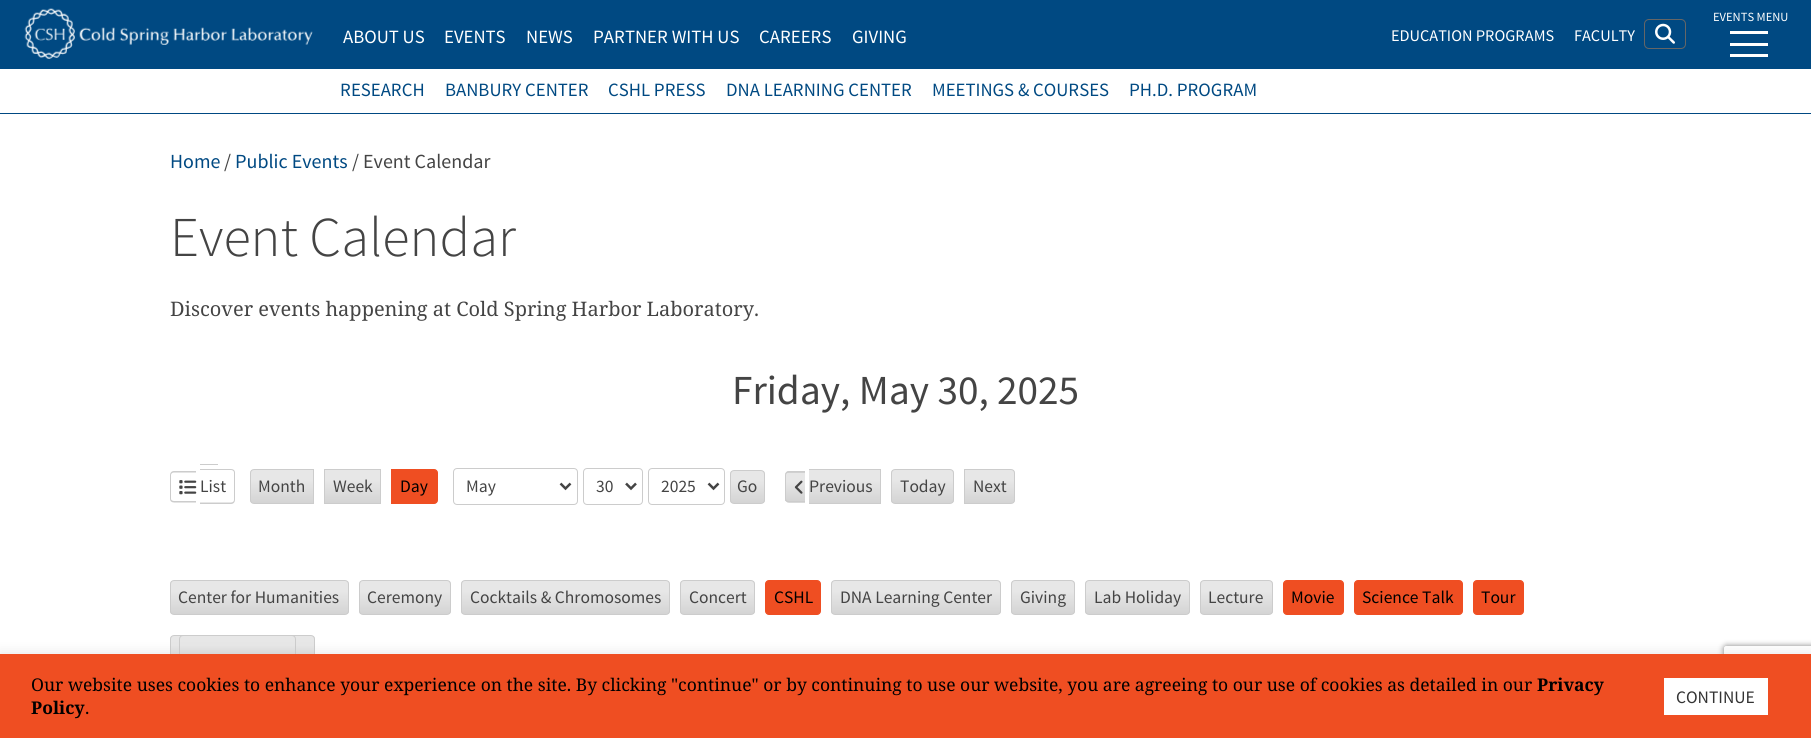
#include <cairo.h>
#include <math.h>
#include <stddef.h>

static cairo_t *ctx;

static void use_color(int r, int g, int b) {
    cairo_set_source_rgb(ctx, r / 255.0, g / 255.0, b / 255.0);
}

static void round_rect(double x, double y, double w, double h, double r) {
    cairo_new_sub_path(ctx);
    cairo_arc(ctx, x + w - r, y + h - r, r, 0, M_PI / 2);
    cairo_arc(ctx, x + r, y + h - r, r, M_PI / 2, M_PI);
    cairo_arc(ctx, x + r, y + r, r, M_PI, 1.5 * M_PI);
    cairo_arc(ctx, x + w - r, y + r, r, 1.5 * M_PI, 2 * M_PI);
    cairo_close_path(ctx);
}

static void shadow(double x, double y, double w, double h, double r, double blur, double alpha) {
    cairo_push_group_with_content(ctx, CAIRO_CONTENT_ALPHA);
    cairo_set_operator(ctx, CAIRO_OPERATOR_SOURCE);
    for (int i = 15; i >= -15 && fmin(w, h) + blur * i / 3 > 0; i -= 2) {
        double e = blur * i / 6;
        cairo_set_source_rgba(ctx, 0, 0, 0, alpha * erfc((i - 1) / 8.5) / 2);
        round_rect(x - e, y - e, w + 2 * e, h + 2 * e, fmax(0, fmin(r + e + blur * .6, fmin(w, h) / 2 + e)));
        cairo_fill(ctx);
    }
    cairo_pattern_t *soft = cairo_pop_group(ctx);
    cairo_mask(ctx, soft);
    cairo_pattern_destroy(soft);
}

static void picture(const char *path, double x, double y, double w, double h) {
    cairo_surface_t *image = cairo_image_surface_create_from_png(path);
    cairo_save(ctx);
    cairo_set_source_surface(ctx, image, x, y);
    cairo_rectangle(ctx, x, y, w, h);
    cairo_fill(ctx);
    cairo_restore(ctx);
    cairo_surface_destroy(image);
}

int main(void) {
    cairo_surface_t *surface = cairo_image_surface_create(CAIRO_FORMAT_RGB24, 1811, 738);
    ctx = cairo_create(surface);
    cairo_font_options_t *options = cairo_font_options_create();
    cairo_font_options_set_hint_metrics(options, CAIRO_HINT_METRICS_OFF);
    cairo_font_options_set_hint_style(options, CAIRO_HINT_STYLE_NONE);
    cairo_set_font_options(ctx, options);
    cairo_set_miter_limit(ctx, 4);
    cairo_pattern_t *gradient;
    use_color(255, 255, 255);
    cairo_paint(ctx);
    use_color(0, 73, 130);
    cairo_rectangle(ctx, 0, 0, 1811, 69);
    cairo_fill(ctx);
    cairo_select_font_face(ctx, "Source Sans Pro", CAIRO_FONT_SLANT_NORMAL, CAIRO_FONT_WEIGHT_NORMAL);
    cairo_set_font_size(ctx, 12.5);
    use_color(255, 255, 255);
    cairo_move_to(ctx, 1713, 21);
    cairo_show_text(ctx, "EVENTS MENU");
    cairo_rectangle(ctx, 1730, 43, 38, 3);
    cairo_fill(ctx);
    cairo_rectangle(ctx, 1730, 31, 38, 3);
    cairo_fill(ctx);
    cairo_rectangle(ctx, 1730, 54, 38, 3);
    cairo_fill(ctx);
    cairo_set_font_size(ctx, 20);
    use_color(0, 73, 130);
    cairo_move_to(ctx, 170, 168);
    cairo_show_text(ctx, "Home");
    use_color(68, 68, 68);
    cairo_move_to(ctx, 224, 168);
    cairo_show_text(ctx, "/");
    use_color(0, 73, 130);
    cairo_move_to(ctx, 235, 168);
    cairo_show_text(ctx, "Public Events");
    use_color(68, 68, 68);
    cairo_move_to(ctx, 352, 168);
    cairo_show_text(ctx, "/ Event Calendar");
    cairo_select_font_face(ctx, "Source Sans Pro Light", CAIRO_FONT_SLANT_NORMAL, CAIRO_FONT_WEIGHT_NORMAL);
    cairo_set_font_size(ctx, 56.25);
    cairo_move_to(ctx, 170, 256);
    cairo_show_text(ctx, "Event Calendar");
    cairo_select_font_face(ctx, "Noto Serif", CAIRO_FONT_SLANT_NORMAL, CAIRO_FONT_WEIGHT_NORMAL);
    cairo_set_font_size(ctx, 20);
    cairo_move_to(ctx, 170, 316);
    cairo_show_text(ctx, "Discover events happening at Cold Spring Harbor Laboratory.");
    cairo_select_font_face(ctx, "Source Sans Pro", CAIRO_FONT_SLANT_NORMAL, CAIRO_FONT_WEIGHT_NORMAL);
    cairo_set_font_size(ctx, 41.25);
    cairo_move_to(ctx, 732, 404);
    cairo_show_text(ctx, "Friday, May 30, 2025");
    use_color(204, 204, 204);
    cairo_set_fill_rule(ctx, CAIRO_FILL_RULE_EVEN_ODD);
    cairo_new_path(ctx);
    cairo_move_to(ctx, 174, 471);
    cairo_line_to(ctx, 196, 471);
    cairo_line_to(ctx, 196, 502.5);
    cairo_line_to(ctx, 174, 502.5);
    cairo_curve_to(ctx, 171.5, 502.5, 170, 501, 170, 499);
    cairo_line_to(ctx, 170, 475);
    cairo_curve_to(ctx, 170, 473, 171.5, 471, 174, 471);
    cairo_close_path(ctx);
    cairo_move_to(ctx, 174, 472.5);
    cairo_line_to(ctx, 196, 472.5);
    cairo_line_to(ctx, 196, 501);
    cairo_line_to(ctx, 174, 501);
    cairo_curve_to(ctx, 172.5, 501, 171, 500, 171, 499);
    cairo_line_to(ctx, 171, 475);
    cairo_curve_to(ctx, 171, 473.5, 172.5, 472.5, 174, 472.5);
    cairo_close_path(ctx);
    cairo_fill(ctx);
    picture("img1.png", 179, 480, 18, 15);
    cairo_new_path(ctx);
    cairo_move_to(ctx, 200, 469);
    cairo_line_to(ctx, 231, 469);
    cairo_curve_to(ctx, 233.5, 469, 235, 470.5, 235, 472.5);
    cairo_line_to(ctx, 235, 500);
    cairo_curve_to(ctx, 235, 502, 233.5, 504, 231, 504);
    cairo_line_to(ctx, 200, 504);
    cairo_close_path(ctx);
    cairo_move_to(ctx, 200, 470);
    cairo_line_to(ctx, 231, 470);
    cairo_curve_to(ctx, 232.5, 470, 234, 471, 234, 472.5);
    cairo_line_to(ctx, 234, 500);
    cairo_curve_to(ctx, 234, 501.5, 232.5, 502.5, 231, 502.5);
    cairo_line_to(ctx, 200, 502.5);
    cairo_close_path(ctx);
    cairo_fill(ctx);
    cairo_set_font_size(ctx, 17.5);
    use_color(68, 68, 68);
    cairo_move_to(ctx, 200, 492);
    cairo_show_text(ctx, "List");
    use_color(204, 204, 204);
    cairo_rectangle(ctx, 200, 464, 18, 1);
    cairo_fill(ctx);
    cairo_save(ctx);
    cairo_set_fill_rule(ctx, CAIRO_FILL_RULE_WINDING);
    cairo_new_path(ctx);
    cairo_move_to(ctx, 254, 469);
    cairo_line_to(ctx, 314, 469);
    cairo_line_to(ctx, 314, 504);
    cairo_line_to(ctx, 254, 504);
    cairo_curve_to(ctx, 252, 504, 250, 502, 250, 500);
    cairo_line_to(ctx, 250, 473);
    cairo_curve_to(ctx, 250, 471, 252, 469, 254, 469);
    cairo_close_path(ctx);
    cairo_clip(ctx);
    gradient = cairo_pattern_create_linear(282, 503, 282, 470);
    cairo_pattern_add_color_stop_rgba(gradient, 0, 0.831, 0.831, 0.831, 1);
    cairo_pattern_add_color_stop_rgba(gradient, 0.7, 0.906, 0.906, 0.906, 1);
    cairo_set_source(ctx, gradient);
    cairo_pattern_destroy(gradient);
    cairo_rectangle(ctx, 250, 470, 63, 33);
    cairo_fill(ctx);
    cairo_restore(ctx);
    cairo_new_path(ctx);
    cairo_move_to(ctx, 254, 469.5);
    cairo_line_to(ctx, 313.5, 469.5);
    cairo_line_to(ctx, 313.5, 503.5);
    cairo_line_to(ctx, 254, 503.5);
    cairo_curve_to(ctx, 252, 503.5, 250.5, 502, 250.5, 500);
    cairo_line_to(ctx, 250.5, 473);
    cairo_curve_to(ctx, 250.5, 471, 252, 469.5, 254, 469.5);
    cairo_close_path(ctx);
    cairo_set_line_width(ctx, 1);
    cairo_stroke(ctx);
    use_color(68, 68, 68);
    cairo_move_to(ctx, 258, 492);
    cairo_show_text(ctx, "Month");
    gradient = cairo_pattern_create_linear(353, 503, 353, 470);
    cairo_pattern_add_color_stop_rgba(gradient, 0, 0.831, 0.831, 0.831, 1);
    cairo_pattern_add_color_stop_rgba(gradient, 0.7, 0.906, 0.906, 0.906, 1);
    cairo_set_source(ctx, gradient);
    cairo_pattern_destroy(gradient);
    cairo_rectangle(ctx, 325, 470, 55, 33);
    cairo_fill(ctx);
    cairo_rectangle(ctx, 324.5, 469.5, 56, 34);
    use_color(204, 204, 204);
    cairo_stroke(ctx);
    use_color(68, 68, 68);
    cairo_move_to(ctx, 333, 492);
    cairo_show_text(ctx, "Week");
    use_color(239, 78, 34);
    cairo_new_path(ctx);
    cairo_move_to(ctx, 391.5, 469.5);
    cairo_line_to(ctx, 434, 469.5);
    cairo_curve_to(ctx, 436, 469.5, 437.5, 471, 437.5, 473);
    cairo_line_to(ctx, 437.5, 500);
    cairo_curve_to(ctx, 437.5, 502, 436, 503.5, 434, 503.5);
    cairo_line_to(ctx, 391.5, 503.5);
    cairo_close_path(ctx);
    cairo_fill_preserve(ctx);
    cairo_stroke(ctx);
    use_color(0, 0, 0);
    cairo_move_to(ctx, 400, 492);
    cairo_show_text(ctx, "Day");
    round_rect(453.5, 468.5, 124, 36, 3.5);
    use_color(204, 204, 204);
    cairo_stroke(ctx);
    cairo_new_path(ctx);
    cairo_move_to(ctx, 560.5, 483.5);
    cairo_line_to(ctx, 565.5, 488.5);
    cairo_line_to(ctx, 570.5, 483.5);
    use_color(68, 68, 68);
    cairo_set_line_width(ctx, 2.5);
    cairo_stroke(ctx);
    cairo_move_to(ctx, 466, 492);
    cairo_show_text(ctx, "May");
    round_rect(583.5, 468.5, 59, 36, 3.5);
    use_color(204, 204, 204);
    cairo_set_line_width(ctx, 1);
    cairo_stroke(ctx);
    cairo_new_path(ctx);
    cairo_move_to(ctx, 626, 483.5);
    cairo_line_to(ctx, 631, 488.5);
    cairo_line_to(ctx, 636, 483.5);
    use_color(68, 68, 68);
    cairo_set_line_width(ctx, 2.5);
    cairo_stroke(ctx);
    cairo_move_to(ctx, 596, 492);
    cairo_show_text(ctx, "30");
    round_rect(648.5, 468.5, 76, 36, 3.5);
    use_color(204, 204, 204);
    cairo_set_line_width(ctx, 1);
    cairo_stroke(ctx);
    cairo_new_path(ctx);
    cairo_move_to(ctx, 708.5, 483.5);
    cairo_line_to(ctx, 713.5, 488.5);
    cairo_line_to(ctx, 718.5, 483.5);
    use_color(68, 68, 68);
    cairo_set_line_width(ctx, 2.5);
    cairo_stroke(ctx);
    cairo_move_to(ctx, 661, 492);
    cairo_show_text(ctx, "2025");
    cairo_save(ctx);
    cairo_set_fill_rule(ctx, CAIRO_FILL_RULE_WINDING);
    round_rect(730, 470, 35, 34, 4);
    cairo_clip(ctx);
    gradient = cairo_pattern_create_linear(748, 503, 748, 471);
    cairo_pattern_add_color_stop_rgba(gradient, 0, 0.831, 0.831, 0.831, 1);
    cairo_pattern_add_color_stop_rgba(gradient, 0.7, 0.906, 0.906, 0.906, 1);
    cairo_set_source(ctx, gradient);
    cairo_pattern_destroy(gradient);
    cairo_rectangle(ctx, 730, 471, 35, 32);
    cairo_fill(ctx);
    cairo_restore(ctx);
    round_rect(730.5, 470.5, 34, 33, 3.5);
    use_color(204, 204, 204);
    cairo_set_line_width(ctx, 1);
    cairo_stroke(ctx);
    use_color(68, 68, 68);
    cairo_move_to(ctx, 737, 492);
    cairo_show_text(ctx, "Go");
    gradient = cairo_pattern_create_linear(796, 501, 796, 473);
    cairo_pattern_add_color_stop_rgba(gradient, 0, 0.831, 0.831, 0.831, 1);
    cairo_pattern_add_color_stop_rgba(gradient, 0.7, 0.906, 0.906, 0.906, 1);
    cairo_set_source(ctx, gradient);
    cairo_pattern_destroy(gradient);
    cairo_rectangle(ctx, 785, 473, 20, 28);
    cairo_fill(ctx);
    cairo_save(ctx);
    cairo_set_fill_rule(ctx, CAIRO_FILL_RULE_WINDING);
    cairo_new_path(ctx);
    cairo_move_to(ctx, 789, 471);
    cairo_line_to(ctx, 805, 471);
    cairo_line_to(ctx, 805, 503);
    cairo_line_to(ctx, 789, 503);
    cairo_curve_to(ctx, 787, 503, 785, 501, 785, 499);
    cairo_line_to(ctx, 785, 475);
    cairo_curve_to(ctx, 785, 473, 787, 471, 789, 471);
    cairo_close_path(ctx);
    cairo_clip(ctx);
    gradient = cairo_pattern_create_linear(796, 473, 796, 444);
    cairo_pattern_add_color_stop_rgba(gradient, 0, 0.831, 0.831, 0.831, 1);
    cairo_pattern_add_color_stop_rgba(gradient, 0.7, 0.906, 0.906, 0.906, 1);
    cairo_set_source(ctx, gradient);
    cairo_pattern_destroy(gradient);
    cairo_rectangle(ctx, 785, 471, 20, 2);
    cairo_fill(ctx);
    gradient = cairo_pattern_create_linear(796, 530, 796, 501);
    cairo_pattern_add_color_stop_rgba(gradient, 0, 0.831, 0.831, 0.831, 1);
    cairo_pattern_add_color_stop_rgba(gradient, 0.7, 0.906, 0.906, 0.906, 1);
    cairo_set_source(ctx, gradient);
    cairo_pattern_destroy(gradient);
    cairo_rectangle(ctx, 785, 501, 20, 2);
    cairo_fill(ctx);
    cairo_restore(ctx);
    use_color(204, 204, 204);
    cairo_new_path(ctx);
    cairo_move_to(ctx, 789, 471);
    cairo_line_to(ctx, 805, 471);
    cairo_line_to(ctx, 805, 502.5);
    cairo_line_to(ctx, 789, 502.5);
    cairo_curve_to(ctx, 786.5, 502.5, 785, 501, 785, 499);
    cairo_line_to(ctx, 785, 475);
    cairo_curve_to(ctx, 785, 473, 786.5, 471, 789, 471);
    cairo_close_path(ctx);
    cairo_move_to(ctx, 789, 472.5);
    cairo_line_to(ctx, 805, 472.5);
    cairo_line_to(ctx, 805, 501);
    cairo_line_to(ctx, 789, 501);
    cairo_curve_to(ctx, 787.5, 501, 786, 500, 786, 499);
    cairo_line_to(ctx, 786, 475);
    cairo_curve_to(ctx, 786, 473.5, 787.5, 472.5, 789, 472.5);
    cairo_close_path(ctx);
    cairo_fill(ctx);
    picture("img2.png", 794, 480, 9, 14);
    gradient = cairo_pattern_create_linear(844, 503, 844, 470);
    cairo_pattern_add_color_stop_rgba(gradient, 0, 0.831, 0.831, 0.831, 1);
    cairo_pattern_add_color_stop_rgba(gradient, 0.7, 0.906, 0.906, 0.906, 1);
    cairo_set_source(ctx, gradient);
    cairo_pattern_destroy(gradient);
    cairo_rectangle(ctx, 809, 470, 71, 33);
    cairo_fill(ctx);
    use_color(68, 68, 68);
    cairo_move_to(ctx, 809, 492);
    cairo_show_text(ctx, "Previous");
    use_color(204, 204, 204);
    cairo_rectangle(ctx, 809, 469, 72, 1);
    cairo_fill(ctx);
    cairo_rectangle(ctx, 880, 469, 1, 35);
    cairo_fill(ctx);
    cairo_rectangle(ctx, 809, 503, 72, 1);
    cairo_fill(ctx);
    cairo_save(ctx);
    cairo_set_fill_rule(ctx, CAIRO_FILL_RULE_WINDING);
    round_rect(891, 469, 63, 35, 4);
    cairo_clip(ctx);
    gradient = cairo_pattern_create_linear(923, 503, 923, 470);
    cairo_pattern_add_color_stop_rgba(gradient, 0, 0.831, 0.831, 0.831, 1);
    cairo_pattern_add_color_stop_rgba(gradient, 0.7, 0.906, 0.906, 0.906, 1);
    cairo_set_source(ctx, gradient);
    cairo_pattern_destroy(gradient);
    cairo_rectangle(ctx, 891, 470, 63, 33);
    cairo_fill(ctx);
    cairo_restore(ctx);
    round_rect(891.5, 469.5, 62, 34, 3.5);
    cairo_stroke(ctx);
    use_color(68, 68, 68);
    cairo_move_to(ctx, 900, 492);
    cairo_show_text(ctx, "Today");
    cairo_save(ctx);
    cairo_set_fill_rule(ctx, CAIRO_FILL_RULE_WINDING);
    cairo_new_path(ctx);
    cairo_move_to(ctx, 964, 469);
    cairo_line_to(ctx, 1011, 469);
    cairo_curve_to(ctx, 1013, 469, 1015, 471, 1015, 473);
    cairo_line_to(ctx, 1015, 500);
    cairo_curve_to(ctx, 1015, 502, 1013, 504, 1011, 504);
    cairo_line_to(ctx, 964, 504);
    cairo_close_path(ctx);
    cairo_clip(ctx);
    gradient = cairo_pattern_create_linear(989, 503, 989, 470);
    cairo_pattern_add_color_stop_rgba(gradient, 0, 0.831, 0.831, 0.831, 1);
    cairo_pattern_add_color_stop_rgba(gradient, 0.7, 0.906, 0.906, 0.906, 1);
    cairo_set_source(ctx, gradient);
    cairo_pattern_destroy(gradient);
    cairo_rectangle(ctx, 965, 470, 50, 33);
    cairo_fill(ctx);
    cairo_restore(ctx);
    cairo_new_path(ctx);
    cairo_move_to(ctx, 964.5, 469.5);
    cairo_line_to(ctx, 1011, 469.5);
    cairo_curve_to(ctx, 1013, 469.5, 1014.5, 471, 1014.5, 473);
    cairo_line_to(ctx, 1014.5, 500);
    cairo_curve_to(ctx, 1014.5, 502, 1013, 503.5, 1011, 503.5);
    cairo_line_to(ctx, 964.5, 503.5);
    cairo_close_path(ctx);
    use_color(204, 204, 204);
    cairo_stroke(ctx);
    use_color(68, 68, 68);
    cairo_move_to(ctx, 973, 492);
    cairo_show_text(ctx, "Next");
    cairo_save(ctx);
    cairo_set_fill_rule(ctx, CAIRO_FILL_RULE_WINDING);
    round_rect(170, 580, 179, 35, 4);
    cairo_clip(ctx);
    gradient = cairo_pattern_create_linear(259, 614, 259, 581);
    cairo_pattern_add_color_stop_rgba(gradient, 0, 0.831, 0.831, 0.831, 1);
    cairo_pattern_add_color_stop_rgba(gradient, 0.7, 0.906, 0.906, 0.906, 1);
    cairo_set_source(ctx, gradient);
    cairo_pattern_destroy(gradient);
    cairo_rectangle(ctx, 170, 581, 179, 33);
    cairo_fill(ctx);
    cairo_restore(ctx);
    round_rect(170.5, 580.5, 178, 34, 3.5);
    use_color(204, 204, 204);
    cairo_stroke(ctx);
    use_color(68, 68, 68);
    cairo_move_to(ctx, 178, 603);
    cairo_show_text(ctx, "Center for Humanities");
    cairo_save(ctx);
    cairo_set_fill_rule(ctx, CAIRO_FILL_RULE_WINDING);
    round_rect(359, 580, 92, 35, 4);
    cairo_clip(ctx);
    gradient = cairo_pattern_create_linear(405, 614, 405, 581);
    cairo_pattern_add_color_stop_rgba(gradient, 0, 0.831, 0.831, 0.831, 1);
    cairo_pattern_add_color_stop_rgba(gradient, 0.7, 0.906, 0.906, 0.906, 1);
    cairo_set_source(ctx, gradient);
    cairo_pattern_destroy(gradient);
    cairo_rectangle(ctx, 359, 581, 92, 33);
    cairo_fill(ctx);
    cairo_restore(ctx);
    round_rect(359.5, 580.5, 91, 34, 3.5);
    use_color(204, 204, 204);
    cairo_stroke(ctx);
    use_color(68, 68, 68);
    cairo_move_to(ctx, 367, 603);
    cairo_show_text(ctx, "Ceremony");
    cairo_save(ctx);
    cairo_set_fill_rule(ctx, CAIRO_FILL_RULE_WINDING);
    round_rect(461, 580, 209, 35, 4);
    cairo_clip(ctx);
    gradient = cairo_pattern_create_linear(566, 614, 566, 581);
    cairo_pattern_add_color_stop_rgba(gradient, 0, 0.831, 0.831, 0.831, 1);
    cairo_pattern_add_color_stop_rgba(gradient, 0.7, 0.906, 0.906, 0.906, 1);
    cairo_set_source(ctx, gradient);
    cairo_pattern_destroy(gradient);
    cairo_rectangle(ctx, 461, 581, 209, 33);
    cairo_fill(ctx);
    cairo_restore(ctx);
    round_rect(461.5, 580.5, 208, 34, 3.5);
    use_color(204, 204, 204);
    cairo_stroke(ctx);
    use_color(68, 68, 68);
    cairo_move_to(ctx, 470, 603);
    cairo_show_text(ctx, "Cocktails & Chromosomes");
    cairo_save(ctx);
    cairo_set_fill_rule(ctx, CAIRO_FILL_RULE_WINDING);
    round_rect(680, 580, 75, 35, 4);
    cairo_clip(ctx);
    gradient = cairo_pattern_create_linear(718, 614, 718, 581);
    cairo_pattern_add_color_stop_rgba(gradient, 0, 0.831, 0.831, 0.831, 1);
    cairo_pattern_add_color_stop_rgba(gradient, 0.7, 0.906, 0.906, 0.906, 1);
    cairo_set_source(ctx, gradient);
    cairo_pattern_destroy(gradient);
    cairo_rectangle(ctx, 680, 581, 75, 33);
    cairo_fill(ctx);
    cairo_restore(ctx);
    round_rect(680.5, 580.5, 74, 34, 3.5);
    use_color(204, 204, 204);
    cairo_stroke(ctx);
    use_color(68, 68, 68);
    cairo_move_to(ctx, 689, 603);
    cairo_show_text(ctx, "Concert");
    use_color(239, 78, 34);
    round_rect(765.5, 580.5, 55, 34, 3.5);
    cairo_fill_preserve(ctx);
    cairo_stroke(ctx);
    use_color(0, 0, 0);
    cairo_move_to(ctx, 774, 603);
    cairo_show_text(ctx, "CSHL");
    cairo_save(ctx);
    cairo_set_fill_rule(ctx, CAIRO_FILL_RULE_WINDING);
    round_rect(831, 580, 170, 35, 4);
    cairo_clip(ctx);
    gradient = cairo_pattern_create_linear(916, 614, 916, 581);
    cairo_pattern_add_color_stop_rgba(gradient, 0, 0.831, 0.831, 0.831, 1);
    cairo_pattern_add_color_stop_rgba(gradient, 0.7, 0.906, 0.906, 0.906, 1);
    cairo_set_source(ctx, gradient);
    cairo_pattern_destroy(gradient);
    cairo_rectangle(ctx, 831, 581, 170, 33);
    cairo_fill(ctx);
    cairo_restore(ctx);
    round_rect(831.5, 580.5, 169, 34, 3.5);
    use_color(204, 204, 204);
    cairo_stroke(ctx);
    use_color(68, 68, 68);
    cairo_move_to(ctx, 840, 603);
    cairo_show_text(ctx, "DNA Learning Center");
    cairo_save(ctx);
    cairo_set_fill_rule(ctx, CAIRO_FILL_RULE_WINDING);
    round_rect(1011, 580, 64, 35, 4);
    cairo_clip(ctx);
    gradient = cairo_pattern_create_linear(1043, 614, 1043, 581);
    cairo_pattern_add_color_stop_rgba(gradient, 0, 0.831, 0.831, 0.831, 1);
    cairo_pattern_add_color_stop_rgba(gradient, 0.7, 0.906, 0.906, 0.906, 1);
    cairo_set_source(ctx, gradient);
    cairo_pattern_destroy(gradient);
    cairo_rectangle(ctx, 1011, 581, 64, 33);
    cairo_fill(ctx);
    cairo_restore(ctx);
    round_rect(1011.5, 580.5, 63, 34, 3.5);
    use_color(204, 204, 204);
    cairo_stroke(ctx);
    use_color(68, 68, 68);
    cairo_move_to(ctx, 1020, 603);
    cairo_show_text(ctx, "Giving");
    cairo_save(ctx);
    cairo_set_fill_rule(ctx, CAIRO_FILL_RULE_WINDING);
    round_rect(1085, 580, 105, 35, 4);
    cairo_clip(ctx);
    gradient = cairo_pattern_create_linear(1138, 614, 1138, 581);
    cairo_pattern_add_color_stop_rgba(gradient, 0, 0.831, 0.831, 0.831, 1);
    cairo_pattern_add_color_stop_rgba(gradient, 0.7, 0.906, 0.906, 0.906, 1);
    cairo_set_source(ctx, gradient);
    cairo_pattern_destroy(gradient);
    cairo_rectangle(ctx, 1085, 581, 105, 33);
    cairo_fill(ctx);
    cairo_restore(ctx);
    round_rect(1085.5, 580.5, 104, 34, 3.5);
    use_color(204, 204, 204);
    cairo_stroke(ctx);
    use_color(68, 68, 68);
    cairo_move_to(ctx, 1094, 603);
    cairo_show_text(ctx, "Lab Holiday");
    cairo_save(ctx);
    cairo_set_fill_rule(ctx, CAIRO_FILL_RULE_WINDING);
    round_rect(1200, 580, 73, 35, 4);
    cairo_clip(ctx);
    gradient = cairo_pattern_create_linear(1236, 614, 1236, 581);
    cairo_pattern_add_color_stop_rgba(gradient, 0, 0.831, 0.831, 0.831, 1);
    cairo_pattern_add_color_stop_rgba(gradient, 0.7, 0.906, 0.906, 0.906, 1);
    cairo_set_source(ctx, gradient);
    cairo_pattern_destroy(gradient);
    cairo_rectangle(ctx, 1200, 581, 73, 33);
    cairo_fill(ctx);
    cairo_restore(ctx);
    round_rect(1200.5, 580.5, 72, 34, 3.5);
    use_color(204, 204, 204);
    cairo_stroke(ctx);
    use_color(68, 68, 68);
    cairo_move_to(ctx, 1208, 603);
    cairo_show_text(ctx, "Lecture");
    use_color(239, 78, 34);
    round_rect(1283.5, 580.5, 60, 34, 3.5);
    cairo_fill_preserve(ctx);
    cairo_stroke(ctx);
    use_color(0, 0, 0);
    cairo_move_to(ctx, 1291, 603);
    cairo_show_text(ctx, "Movie");
    use_color(239, 78, 34);
    round_rect(1354.5, 580.5, 108, 34, 3.5);
    cairo_fill_preserve(ctx);
    cairo_stroke(ctx);
    use_color(0, 0, 0);
    cairo_move_to(ctx, 1362, 603);
    cairo_show_text(ctx, "Science Talk");
    use_color(239, 78, 34);
    round_rect(1473.5, 580.5, 50, 34, 3.5);
    cairo_fill_preserve(ctx);
    cairo_stroke(ctx);
    use_color(0, 0, 0);
    cairo_move_to(ctx, 1481, 603);
    cairo_show_text(ctx, "Tour");
    cairo_save(ctx);
    cairo_set_fill_rule(ctx, CAIRO_FILL_RULE_WINDING);
    round_rect(170, 635, 145, 35, 4);
    cairo_clip(ctx);
    gradient = cairo_pattern_create_linear(243, 669, 243, 636);
    cairo_pattern_add_color_stop_rgba(gradient, 0, 0.831, 0.831, 0.831, 1);
    cairo_pattern_add_color_stop_rgba(gradient, 0.7, 0.906, 0.906, 0.906, 1);
    cairo_set_source(ctx, gradient);
    cairo_pattern_destroy(gradient);
    cairo_rectangle(ctx, 170, 636, 145, 18);
    cairo_fill(ctx);
    cairo_restore(ctx);
    round_rect(170.5, 635.5, 144, 34, 3.5);
    use_color(204, 204, 204);
    cairo_stroke(ctx);
    round_rect(179.5, 635.5, 116, 34, 3.5);
    cairo_stroke(ctx);
    use_color(0, 73, 130);
    cairo_rectangle(ctx, 0, 113, 1811, 1);
    cairo_fill(ctx);
    picture("img3.png", 24, 8, 289, 51);
    cairo_set_font_size(ctx, 18.75);
    use_color(255, 255, 255);
    cairo_move_to(ctx, 343, 43);
    cairo_show_text(ctx, "ABOUT US");
    cairo_move_to(ctx, 444, 43);
    cairo_show_text(ctx, "EVENTS");
    cairo_move_to(ctx, 526, 43);
    cairo_show_text(ctx, "NEWS");
    cairo_move_to(ctx, 593, 43);
    cairo_show_text(ctx, "PARTNER WITH US");
    cairo_move_to(ctx, 759, 43);
    cairo_show_text(ctx, "CAREERS");
    cairo_move_to(ctx, 852, 43);
    cairo_show_text(ctx, "GIVING");
    cairo_set_font_size(ctx, 16.25);
    cairo_move_to(ctx, 1391, 41);
    cairo_show_text(ctx, "EDUCATION PROGRAMS");
    cairo_move_to(ctx, 1574, 41);
    cairo_show_text(ctx, "FACULTY");
    cairo_set_font_size(ctx, 18.75);
    use_color(0, 73, 130);
    cairo_move_to(ctx, 340, 96);
    cairo_show_text(ctx, "RESEARCH");
    cairo_move_to(ctx, 445, 96);
    cairo_show_text(ctx, "BANBURY CENTER");
    cairo_move_to(ctx, 608, 96);
    cairo_show_text(ctx, "CSHL PRESS");
    cairo_move_to(ctx, 726, 96);
    cairo_show_text(ctx, "DNA LEARNING CENTER");
    cairo_move_to(ctx, 932, 96);
    cairo_show_text(ctx, "MEETINGS & COURSES");
    cairo_move_to(ctx, 1129, 96);
    cairo_show_text(ctx, "PH.D. PROGRAM");
    round_rect(1644.5, 19.5, 41, 29, 4.5);
    use_color(102, 102, 102);
    cairo_stroke(ctx);
    picture("img4.png", 1655, 23, 20, 21);
    use_color(172, 171, 171);
    shadow(0, 653, 1811, 85, 0, 6, 0.3);
    cairo_save(ctx);
    cairo_new_path(ctx);
    cairo_move_to(ctx, 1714, 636);
    cairo_line_to(ctx, 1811, 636);
    cairo_line_to(ctx, 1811, 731);
    cairo_line_to(ctx, 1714, 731);
    cairo_close_path(ctx);
    cairo_move_to(ctx, 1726.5, 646);
    cairo_line_to(ctx, 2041.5, 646);
    cairo_curve_to(ctx, 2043, 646, 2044, 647, 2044, 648.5);
    cairo_line_to(ctx, 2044, 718.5);
    cairo_curve_to(ctx, 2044, 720, 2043, 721, 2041.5, 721);
    cairo_line_to(ctx, 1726.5, 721);
    cairo_curve_to(ctx, 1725, 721, 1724, 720, 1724, 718.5);
    cairo_line_to(ctx, 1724, 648.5);
    cairo_curve_to(ctx, 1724, 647, 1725, 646, 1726.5, 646);
    cairo_close_path(ctx);
    cairo_clip(ctx);
    use_color(128, 128, 128);
    shadow(1724, 646, 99, 75, 2.5, 3, 1);
    cairo_restore(ctx);
    use_color(239, 78, 34);
    cairo_rectangle(ctx, 0, 654, 1811, 84);
    cairo_fill(ctx);
    cairo_select_font_face(ctx, "Noto Serif", CAIRO_FONT_SLANT_NORMAL, CAIRO_FONT_WEIGHT_NORMAL);
    cairo_set_font_size(ctx, 17.5);
    use_color(0, 0, 0);
    cairo_move_to(ctx, 31, 691);
    cairo_show_text(ctx, "Our website uses cookies to enhance your experience on the site. By clicking \"continue\" or by continuing to use our website, you are agreeing to our use of cookies as detailed in our");
    cairo_select_font_face(ctx, "Noto Serif", CAIRO_FONT_SLANT_NORMAL, CAIRO_FONT_WEIGHT_BOLD);
    cairo_move_to(ctx, 1537, 691);
    cairo_show_text(ctx, "Privacy");
    cairo_move_to(ctx, 31, 714);
    cairo_show_text(ctx, "Policy");
    cairo_select_font_face(ctx, "Noto Serif", CAIRO_FONT_SLANT_NORMAL, CAIRO_FONT_WEIGHT_NORMAL);
    cairo_move_to(ctx, 85, 714);
    cairo_show_text(ctx, ".");
    use_color(255, 255, 255);
    cairo_rectangle(ctx, 1664, 678, 104, 37);
    cairo_fill(ctx);
    cairo_select_font_face(ctx, "Source Sans Pro", CAIRO_FONT_SLANT_NORMAL, CAIRO_FONT_WEIGHT_NORMAL);
    use_color(51, 51, 51);
    cairo_move_to(ctx, 1676, 703);
    cairo_show_text(ctx, "CONTINUE");
    cairo_surface_write_to_png(surface, "result.png");
    cairo_font_options_destroy(options);
    cairo_destroy(ctx);
    cairo_surface_destroy(surface);
    return 0;
}
